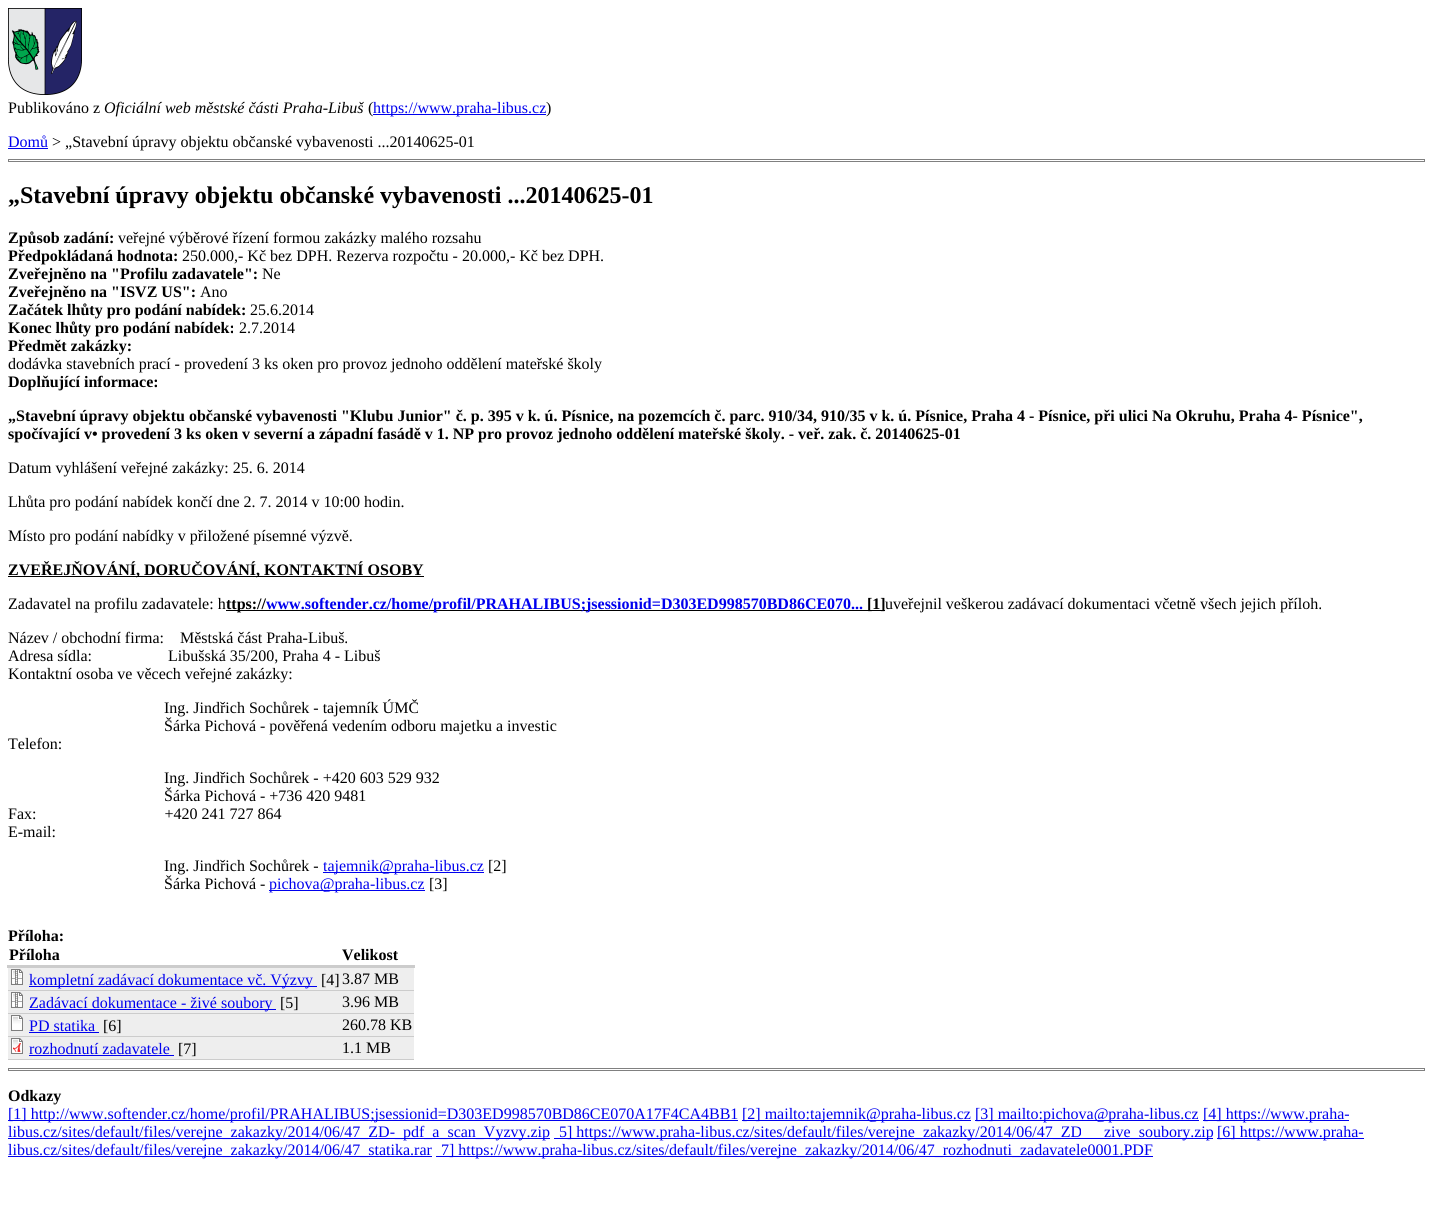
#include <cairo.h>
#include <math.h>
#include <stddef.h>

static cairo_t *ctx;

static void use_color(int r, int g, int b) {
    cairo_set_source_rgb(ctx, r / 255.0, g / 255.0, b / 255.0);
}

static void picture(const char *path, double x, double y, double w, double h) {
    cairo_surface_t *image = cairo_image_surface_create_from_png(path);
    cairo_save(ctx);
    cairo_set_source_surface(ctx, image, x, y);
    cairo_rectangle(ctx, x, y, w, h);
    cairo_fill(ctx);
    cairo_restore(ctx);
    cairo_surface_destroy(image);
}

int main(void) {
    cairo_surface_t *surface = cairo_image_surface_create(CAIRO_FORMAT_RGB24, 1433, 1230);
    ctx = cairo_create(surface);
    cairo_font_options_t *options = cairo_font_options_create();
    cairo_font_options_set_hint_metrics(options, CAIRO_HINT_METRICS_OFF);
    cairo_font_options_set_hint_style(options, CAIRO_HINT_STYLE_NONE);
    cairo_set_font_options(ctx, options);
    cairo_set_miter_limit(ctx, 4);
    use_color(255, 255, 255);
    cairo_paint(ctx);
    picture("img1.png", 8, 8, 74, 87);
    cairo_select_font_face(ctx, "Liberation Serif", CAIRO_FONT_SLANT_NORMAL, CAIRO_FONT_WEIGHT_NORMAL);
    cairo_set_font_size(ctx, 16);
    use_color(0, 0, 0);
    cairo_move_to(ctx, 8, 113);
    cairo_show_text(ctx, "Publikováno z");
    cairo_select_font_face(ctx, "Liberation Serif", CAIRO_FONT_SLANT_ITALIC, CAIRO_FONT_WEIGHT_NORMAL);
    cairo_move_to(ctx, 104, 113);
    cairo_show_text(ctx, "Oficiální web městské části Praha-Libuš");
    cairo_select_font_face(ctx, "Liberation Serif", CAIRO_FONT_SLANT_NORMAL, CAIRO_FONT_WEIGHT_NORMAL);
    cairo_move_to(ctx, 368, 113);
    cairo_show_text(ctx, "(");
    use_color(0, 0, 238);
    cairo_rectangle(ctx, 373, 114, 173, 1);
    cairo_fill(ctx);
    cairo_move_to(ctx, 373, 113);
    cairo_show_text(ctx, "https://www.praha-libus.cz");
    use_color(0, 0, 0);
    cairo_move_to(ctx, 546, 113);
    cairo_show_text(ctx, ")");
    use_color(0, 0, 238);
    cairo_move_to(ctx, 8, 147);
    cairo_show_text(ctx, "Domů");
    cairo_rectangle(ctx, 8, 148, 40, 1);
    cairo_fill(ctx);
    use_color(0, 0, 0);
    cairo_move_to(ctx, 52, 147);
    cairo_show_text(ctx, "> „Stavební úpravy objektu občanské vybavenosti ...20140625-01");
    cairo_rectangle(ctx, 8.5, 159.5, 1416, 2);
    use_color(128, 128, 128);
    cairo_set_line_width(ctx, 1);
    cairo_stroke(ctx);
    cairo_select_font_face(ctx, "Liberation Serif", CAIRO_FONT_SLANT_NORMAL, CAIRO_FONT_WEIGHT_BOLD);
    cairo_set_font_size(ctx, 24);
    use_color(0, 0, 0);
    cairo_move_to(ctx, 8, 203);
    cairo_show_text(ctx, "„Stavební úpravy objektu občanské vybavenosti ...20140625-01");
    cairo_set_font_size(ctx, 16);
    cairo_move_to(ctx, 8, 243);
    cairo_show_text(ctx, "Způsob zadání:");
    cairo_select_font_face(ctx, "Liberation Serif", CAIRO_FONT_SLANT_NORMAL, CAIRO_FONT_WEIGHT_NORMAL);
    cairo_move_to(ctx, 118, 243);
    cairo_show_text(ctx, "veřejné výběrové řízení formou zakázky malého rozsahu");
    cairo_select_font_face(ctx, "Liberation Serif", CAIRO_FONT_SLANT_NORMAL, CAIRO_FONT_WEIGHT_BOLD);
    cairo_move_to(ctx, 8, 261);
    cairo_show_text(ctx, "Předpokládaná hodnota:");
    cairo_select_font_face(ctx, "Liberation Serif", CAIRO_FONT_SLANT_NORMAL, CAIRO_FONT_WEIGHT_NORMAL);
    cairo_move_to(ctx, 182, 261);
    cairo_show_text(ctx, "250.000,- Kč bez DPH. Rezerva rozpočtu - 20.000,- Kč bez DPH.");
    cairo_select_font_face(ctx, "Liberation Serif", CAIRO_FONT_SLANT_NORMAL, CAIRO_FONT_WEIGHT_BOLD);
    cairo_move_to(ctx, 8, 279);
    cairo_show_text(ctx, "Zveřejněno na \"Profilu zadavatele\":");
    cairo_select_font_face(ctx, "Liberation Serif", CAIRO_FONT_SLANT_NORMAL, CAIRO_FONT_WEIGHT_NORMAL);
    cairo_move_to(ctx, 262, 279);
    cairo_show_text(ctx, "Ne");
    cairo_select_font_face(ctx, "Liberation Serif", CAIRO_FONT_SLANT_NORMAL, CAIRO_FONT_WEIGHT_BOLD);
    cairo_move_to(ctx, 8, 297);
    cairo_show_text(ctx, "Zveřejněno na \"ISVZ US\":");
    cairo_select_font_face(ctx, "Liberation Serif", CAIRO_FONT_SLANT_NORMAL, CAIRO_FONT_WEIGHT_NORMAL);
    cairo_move_to(ctx, 200, 297);
    cairo_show_text(ctx, "Ano");
    cairo_select_font_face(ctx, "Liberation Serif", CAIRO_FONT_SLANT_NORMAL, CAIRO_FONT_WEIGHT_BOLD);
    cairo_move_to(ctx, 8, 315);
    cairo_show_text(ctx, "Začátek lhůty pro podání nabídek:");
    cairo_select_font_face(ctx, "Liberation Serif", CAIRO_FONT_SLANT_NORMAL, CAIRO_FONT_WEIGHT_NORMAL);
    cairo_move_to(ctx, 250, 315);
    cairo_show_text(ctx, "25.6.2014");
    cairo_select_font_face(ctx, "Liberation Serif", CAIRO_FONT_SLANT_NORMAL, CAIRO_FONT_WEIGHT_BOLD);
    cairo_move_to(ctx, 8, 333);
    cairo_show_text(ctx, "Konec lhůty pro podání nabídek:");
    cairo_select_font_face(ctx, "Liberation Serif", CAIRO_FONT_SLANT_NORMAL, CAIRO_FONT_WEIGHT_NORMAL);
    cairo_move_to(ctx, 239, 333);
    cairo_show_text(ctx, "2.7.2014");
    cairo_select_font_face(ctx, "Liberation Serif", CAIRO_FONT_SLANT_NORMAL, CAIRO_FONT_WEIGHT_BOLD);
    cairo_move_to(ctx, 8, 351);
    cairo_show_text(ctx, "Předmět zakázky:");
    cairo_select_font_face(ctx, "Liberation Serif", CAIRO_FONT_SLANT_NORMAL, CAIRO_FONT_WEIGHT_NORMAL);
    cairo_move_to(ctx, 8, 369);
    cairo_show_text(ctx, "dodávka stavebních prací - provedení 3 ks oken pro provoz jednoho oddělení mateřské školy");
    cairo_select_font_face(ctx, "Liberation Serif", CAIRO_FONT_SLANT_NORMAL, CAIRO_FONT_WEIGHT_BOLD);
    cairo_move_to(ctx, 8, 387);
    cairo_show_text(ctx, "Doplňující informace:");
    cairo_move_to(ctx, 8, 421);
    cairo_show_text(ctx, "„Stavební úpravy objektu občanské vybavenosti \"Klubu Junior\" č. p. 395 v k. ú. Písnice, na pozemcích č. parc. 910/34, 910/35 v k. ú. Písnice, Praha 4 - Písnice, při ulici Na Okruhu, Praha 4- Písnice\",");
    cairo_move_to(ctx, 8, 439);
    cairo_show_text(ctx, "spočívající v• provedení 3 ks oken v severní a západní fasádě v 1. NP pro provoz jednoho oddělení mateřské školy. - veř. zak. č. 20140625-01");
    cairo_select_font_face(ctx, "Liberation Serif", CAIRO_FONT_SLANT_NORMAL, CAIRO_FONT_WEIGHT_NORMAL);
    cairo_move_to(ctx, 8, 473);
    cairo_show_text(ctx, "Datum vyhlášení veřejné zakázky: 25. 6. 2014");
    cairo_move_to(ctx, 8, 507);
    cairo_show_text(ctx, "Lhůta pro podání nabídek končí dne 2. 7. 2014 v 10:00 hodin.");
    cairo_move_to(ctx, 8, 541);
    cairo_show_text(ctx, "Místo pro podání nabídky v přiložené písemné výzvě.");
    cairo_rectangle(ctx, 8, 576, 416, 1);
    cairo_fill(ctx);
    cairo_select_font_face(ctx, "Liberation Serif", CAIRO_FONT_SLANT_NORMAL, CAIRO_FONT_WEIGHT_BOLD);
    cairo_move_to(ctx, 8, 575);
    cairo_show_text(ctx, "ZVEŘEJŇOVÁNÍ, DORUČOVÁNÍ, KONTAKTNÍ OSOBY");
    cairo_select_font_face(ctx, "Liberation Serif", CAIRO_FONT_SLANT_NORMAL, CAIRO_FONT_WEIGHT_NORMAL);
    cairo_move_to(ctx, 8, 609);
    cairo_show_text(ctx, "Zadavatel na profilu zadavatele: h");
    cairo_rectangle(ctx, 226, 610, 659, 1);
    cairo_fill(ctx);
    cairo_select_font_face(ctx, "Liberation Serif", CAIRO_FONT_SLANT_NORMAL, CAIRO_FONT_WEIGHT_BOLD);
    cairo_move_to(ctx, 226, 609);
    cairo_show_text(ctx, "ttps://");
    use_color(0, 0, 238);
    cairo_move_to(ctx, 266, 609);
    cairo_show_text(ctx, "www.softender.cz/home/profil/PRAHALIBUS;jsessionid=D303ED998570BD86CE070...");
    use_color(0, 0, 0);
    cairo_move_to(ctx, 867, 609);
    cairo_show_text(ctx, "[1]");
    cairo_select_font_face(ctx, "Liberation Serif", CAIRO_FONT_SLANT_NORMAL, CAIRO_FONT_WEIGHT_NORMAL);
    cairo_move_to(ctx, 885, 609);
    cairo_show_text(ctx, "uveřejnil veškerou zadávací dokumentaci včetně všech jejich příloh.");
    cairo_move_to(ctx, 8, 643);
    cairo_show_text(ctx, "Název / obchodní firma:    Městská část Praha-Libuš.");
    cairo_move_to(ctx, 8, 661);
    cairo_show_text(ctx, "Adresa sídla:                   Libušská 35/200, Praha 4 - Libuš");
    cairo_move_to(ctx, 8, 679);
    cairo_show_text(ctx, "Kontaktní osoba ve věcech veřejné zakázky:");
    cairo_move_to(ctx, 164, 713);
    cairo_show_text(ctx, "Ing. Jindřich Sochůrek - tajemník ÚMČ");
    cairo_move_to(ctx, 164, 731);
    cairo_show_text(ctx, "Šárka Pichová - pověřená vedením odboru majetku a investic");
    cairo_move_to(ctx, 8, 749);
    cairo_show_text(ctx, "Telefon:");
    cairo_move_to(ctx, 164, 783);
    cairo_show_text(ctx, "Ing. Jindřich Sochůrek - +420 603 529 932");
    cairo_move_to(ctx, 164, 801);
    cairo_show_text(ctx, "Šárka Pichová - +736 420 9481");
    cairo_move_to(ctx, 8, 819);
    cairo_show_text(ctx, "Fax:                                +420 241 727 864");
    cairo_move_to(ctx, 8, 837);
    cairo_show_text(ctx, "E-mail:");
    cairo_move_to(ctx, 164, 871);
    cairo_show_text(ctx, "Ing. Jindřich Sochůrek -");
    use_color(0, 0, 238);
    cairo_rectangle(ctx, 323, 872, 161, 1);
    cairo_fill(ctx);
    cairo_move_to(ctx, 323, 871);
    cairo_show_text(ctx, "tajemnik@praha-libus.cz");
    use_color(0, 0, 0);
    cairo_move_to(ctx, 488, 871);
    cairo_show_text(ctx, "[2]");
    cairo_move_to(ctx, 164, 889);
    cairo_show_text(ctx, "Šárka Pichová -");
    use_color(0, 0, 238);
    cairo_rectangle(ctx, 269, 890, 156, 1);
    cairo_fill(ctx);
    cairo_move_to(ctx, 269, 889);
    cairo_show_text(ctx, "pichova@praha-libus.cz");
    use_color(0, 0, 0);
    cairo_move_to(ctx, 429, 889);
    cairo_show_text(ctx, "[3]");
    cairo_select_font_face(ctx, "Liberation Serif", CAIRO_FONT_SLANT_NORMAL, CAIRO_FONT_WEIGHT_BOLD);
    cairo_move_to(ctx, 8, 941);
    cairo_show_text(ctx, "Příloha:");
    cairo_move_to(ctx, 9, 960);
    cairo_show_text(ctx, "Příloha");
    use_color(204, 204, 204);
    cairo_rectangle(ctx, 7, 965, 408, 3);
    cairo_fill(ctx);
    use_color(0, 0, 0);
    cairo_move_to(ctx, 342, 960);
    cairo_show_text(ctx, "Velikost");
    use_color(238, 238, 238);
    cairo_rectangle(ctx, 8, 968, 406, 22);
    cairo_fill(ctx);
    use_color(204, 204, 204);
    cairo_rectangle(ctx, 8, 990, 406, 1);
    cairo_fill(ctx);
    picture("img2.png", 11, 969, 12, 16);
    use_color(0, 0, 238);
    cairo_rectangle(ctx, 29, 986, 288, 1);
    cairo_fill(ctx);
    cairo_select_font_face(ctx, "Liberation Serif", CAIRO_FONT_SLANT_NORMAL, CAIRO_FONT_WEIGHT_NORMAL);
    cairo_move_to(ctx, 29, 985);
    cairo_show_text(ctx, "kompletní zadávací dokumentace vč. Výzvy");
    use_color(0, 0, 0);
    cairo_move_to(ctx, 321, 985);
    cairo_show_text(ctx, "[4]");
    cairo_move_to(ctx, 342, 984);
    cairo_show_text(ctx, "3.87 MB");
    use_color(238, 238, 238);
    cairo_rectangle(ctx, 8, 991, 406, 22);
    cairo_fill(ctx);
    use_color(204, 204, 204);
    cairo_rectangle(ctx, 8, 1013, 406, 1);
    cairo_fill(ctx);
    picture("img2.png", 11, 992, 12, 16);
    use_color(0, 0, 238);
    cairo_rectangle(ctx, 29, 1009, 247, 1);
    cairo_fill(ctx);
    cairo_move_to(ctx, 29, 1008);
    cairo_show_text(ctx, "Zadávací dokumentace - živé soubory");
    use_color(0, 0, 0);
    cairo_move_to(ctx, 280, 1008);
    cairo_show_text(ctx, "[5]");
    cairo_move_to(ctx, 342, 1007);
    cairo_show_text(ctx, "3.96 MB");
    use_color(238, 238, 238);
    cairo_rectangle(ctx, 8, 1014, 406, 22);
    cairo_fill(ctx);
    use_color(204, 204, 204);
    cairo_rectangle(ctx, 8, 1036, 406, 1);
    cairo_fill(ctx);
    picture("img3.png", 11, 1015, 12, 16);
    use_color(0, 0, 238);
    cairo_move_to(ctx, 29, 1031);
    cairo_show_text(ctx, "PD statika");
    cairo_rectangle(ctx, 29, 1032, 70, 1);
    cairo_fill(ctx);
    use_color(0, 0, 0);
    cairo_move_to(ctx, 103, 1031);
    cairo_show_text(ctx, "[6]");
    cairo_move_to(ctx, 342, 1030);
    cairo_show_text(ctx, "260.78 KB");
    use_color(238, 238, 238);
    cairo_rectangle(ctx, 8, 1037, 406, 22);
    cairo_fill(ctx);
    use_color(204, 204, 204);
    cairo_rectangle(ctx, 8, 1059, 406, 1);
    cairo_fill(ctx);
    picture("img4.png", 11, 1038, 12, 16);
    use_color(0, 0, 238);
    cairo_move_to(ctx, 29, 1054);
    cairo_show_text(ctx, "rozhodnutí zadavatele");
    cairo_rectangle(ctx, 29, 1055, 145, 1);
    cairo_fill(ctx);
    use_color(0, 0, 0);
    cairo_move_to(ctx, 178, 1054);
    cairo_show_text(ctx, "[7]");
    cairo_move_to(ctx, 342, 1053);
    cairo_show_text(ctx, "1.1 MB");
    cairo_rectangle(ctx, 8.5, 1068.5, 1416, 2);
    use_color(128, 128, 128);
    cairo_stroke(ctx);
    cairo_select_font_face(ctx, "Liberation Serif", CAIRO_FONT_SLANT_NORMAL, CAIRO_FONT_WEIGHT_BOLD);
    use_color(0, 0, 0);
    cairo_move_to(ctx, 8, 1101);
    cairo_show_text(ctx, "Odkazy");
    use_color(0, 0, 238);
    cairo_rectangle(ctx, 8, 1120, 730, 1);
    cairo_fill(ctx);
    cairo_select_font_face(ctx, "Liberation Serif", CAIRO_FONT_SLANT_NORMAL, CAIRO_FONT_WEIGHT_NORMAL);
    cairo_move_to(ctx, 8, 1119);
    cairo_show_text(ctx, "[1] http://www.softender.cz/home/profil/PRAHALIBUS;jsessionid=D303ED998570BD86CE070A17F4CA4BB1");
    cairo_rectangle(ctx, 742, 1120, 229, 1);
    cairo_fill(ctx);
    cairo_move_to(ctx, 742, 1119);
    cairo_show_text(ctx, "[2] mailto:tajemnik@praha-libus.cz");
    cairo_rectangle(ctx, 975, 1120, 224, 1);
    cairo_fill(ctx);
    cairo_move_to(ctx, 975, 1119);
    cairo_show_text(ctx, "[3] mailto:pichova@praha-libus.cz");
    cairo_rectangle(ctx, 1203, 1120, 146, 1);
    cairo_fill(ctx);
    cairo_move_to(ctx, 1203, 1119);
    cairo_show_text(ctx, "[4] https://www.praha-");
    cairo_rectangle(ctx, 8, 1138, 542, 1);
    cairo_fill(ctx);
    cairo_move_to(ctx, 8, 1137);
    cairo_show_text(ctx, "libus.cz/sites/default/files/verejne_zakazky/2014/06/47_ZD-_pdf_a_scan_Vyzvy.zip");
    cairo_rectangle(ctx, 554, 1138, 659, 1);
    cairo_fill(ctx);
    cairo_move_to(ctx, 559, 1137);
    cairo_show_text(ctx, "5] https://www.praha-libus.cz/sites/default/files/verejne_zakazky/2014/06/47_ZD");
    cairo_move_to(ctx, 1104, 1137);
    cairo_show_text(ctx, "zive_soubory.zip");
    cairo_rectangle(ctx, 1217, 1138, 147, 1);
    cairo_fill(ctx);
    cairo_move_to(ctx, 1217, 1137);
    cairo_show_text(ctx, "[6] https://www.praha-");
    cairo_rectangle(ctx, 8, 1156, 424, 1);
    cairo_fill(ctx);
    cairo_move_to(ctx, 8, 1155);
    cairo_show_text(ctx, "libus.cz/sites/default/files/verejne_zakazky/2014/06/47_statika.rar");
    cairo_rectangle(ctx, 436, 1156, 717, 1);
    cairo_fill(ctx);
    cairo_move_to(ctx, 441, 1155);
    cairo_show_text(ctx, "7] https://www.praha-libus.cz/sites/default/files/verejne_zakazky/2014/06/47_rozhodnuti_zadavatele0001.PDF");
    cairo_surface_write_to_png(surface, "result.png");
    cairo_font_options_destroy(options);
    cairo_destroy(ctx);
    cairo_surface_destroy(surface);
    return 0;
}
